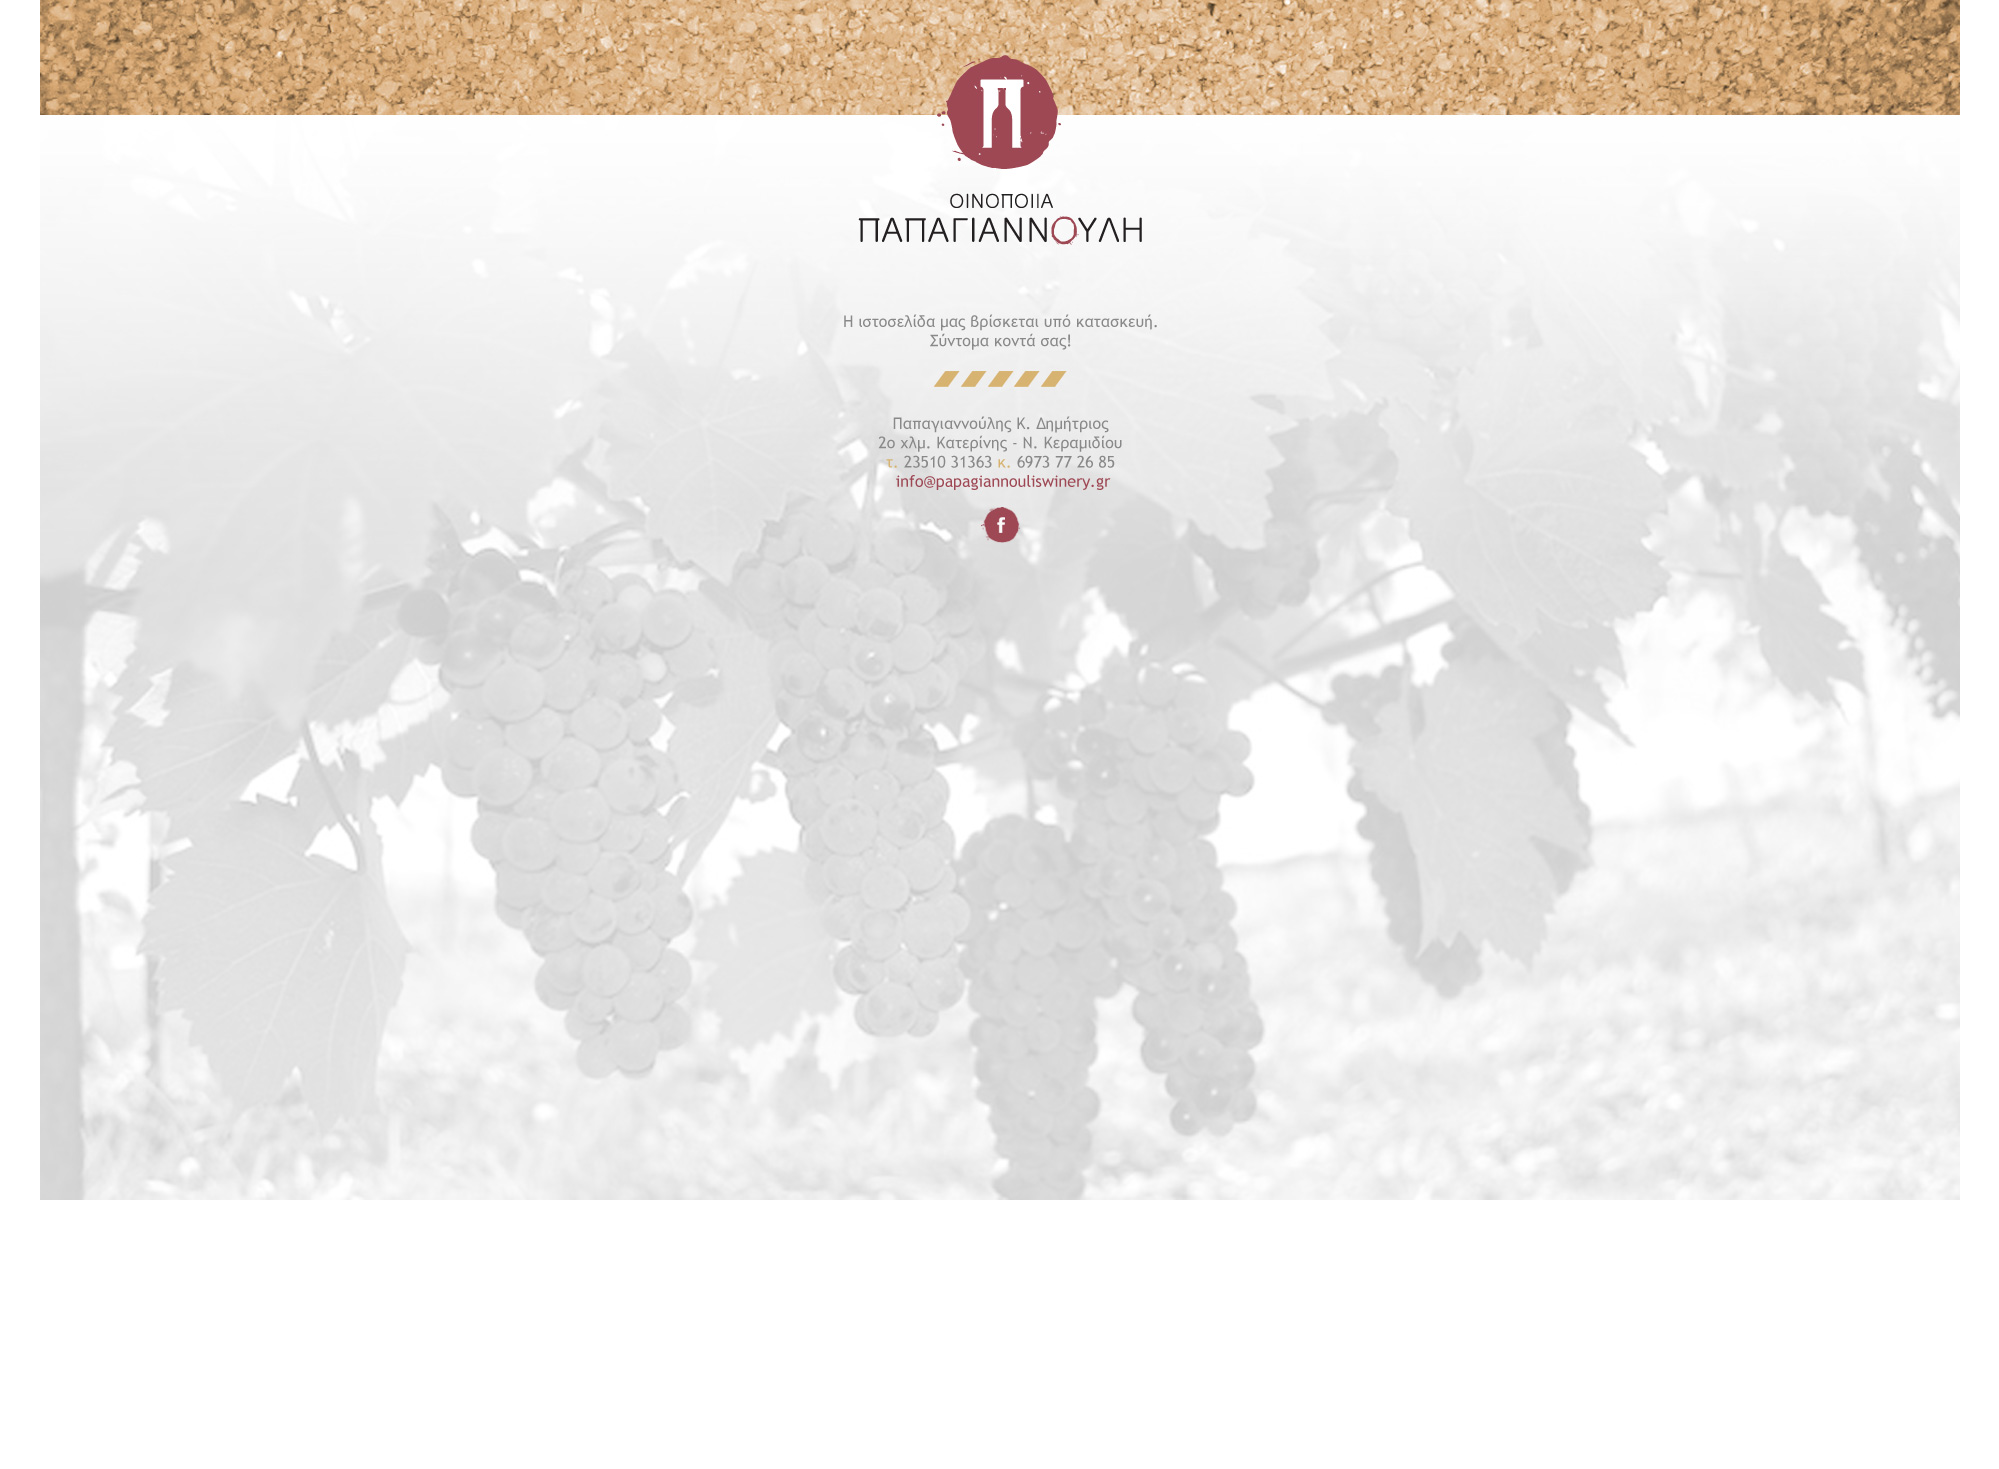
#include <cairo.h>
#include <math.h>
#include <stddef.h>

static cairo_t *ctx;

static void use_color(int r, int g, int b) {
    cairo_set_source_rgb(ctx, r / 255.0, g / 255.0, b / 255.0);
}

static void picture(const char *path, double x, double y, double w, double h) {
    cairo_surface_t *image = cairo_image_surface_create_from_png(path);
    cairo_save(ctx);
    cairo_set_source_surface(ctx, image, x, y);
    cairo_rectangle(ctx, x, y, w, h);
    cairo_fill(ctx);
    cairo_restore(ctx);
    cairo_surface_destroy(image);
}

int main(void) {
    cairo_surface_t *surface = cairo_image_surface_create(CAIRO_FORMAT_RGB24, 1999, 1469);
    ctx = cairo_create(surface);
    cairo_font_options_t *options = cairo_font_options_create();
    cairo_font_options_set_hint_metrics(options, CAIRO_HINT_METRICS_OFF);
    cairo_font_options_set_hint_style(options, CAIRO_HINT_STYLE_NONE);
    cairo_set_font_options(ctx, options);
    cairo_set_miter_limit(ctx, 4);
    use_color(255, 255, 255);
    cairo_paint(ctx);
    picture("img1.png", 40, 0, 1920, 1200);
    cairo_surface_write_to_png(surface, "result.png");
    cairo_font_options_destroy(options);
    cairo_destroy(ctx);
    cairo_surface_destroy(surface);
    return 0;
}
